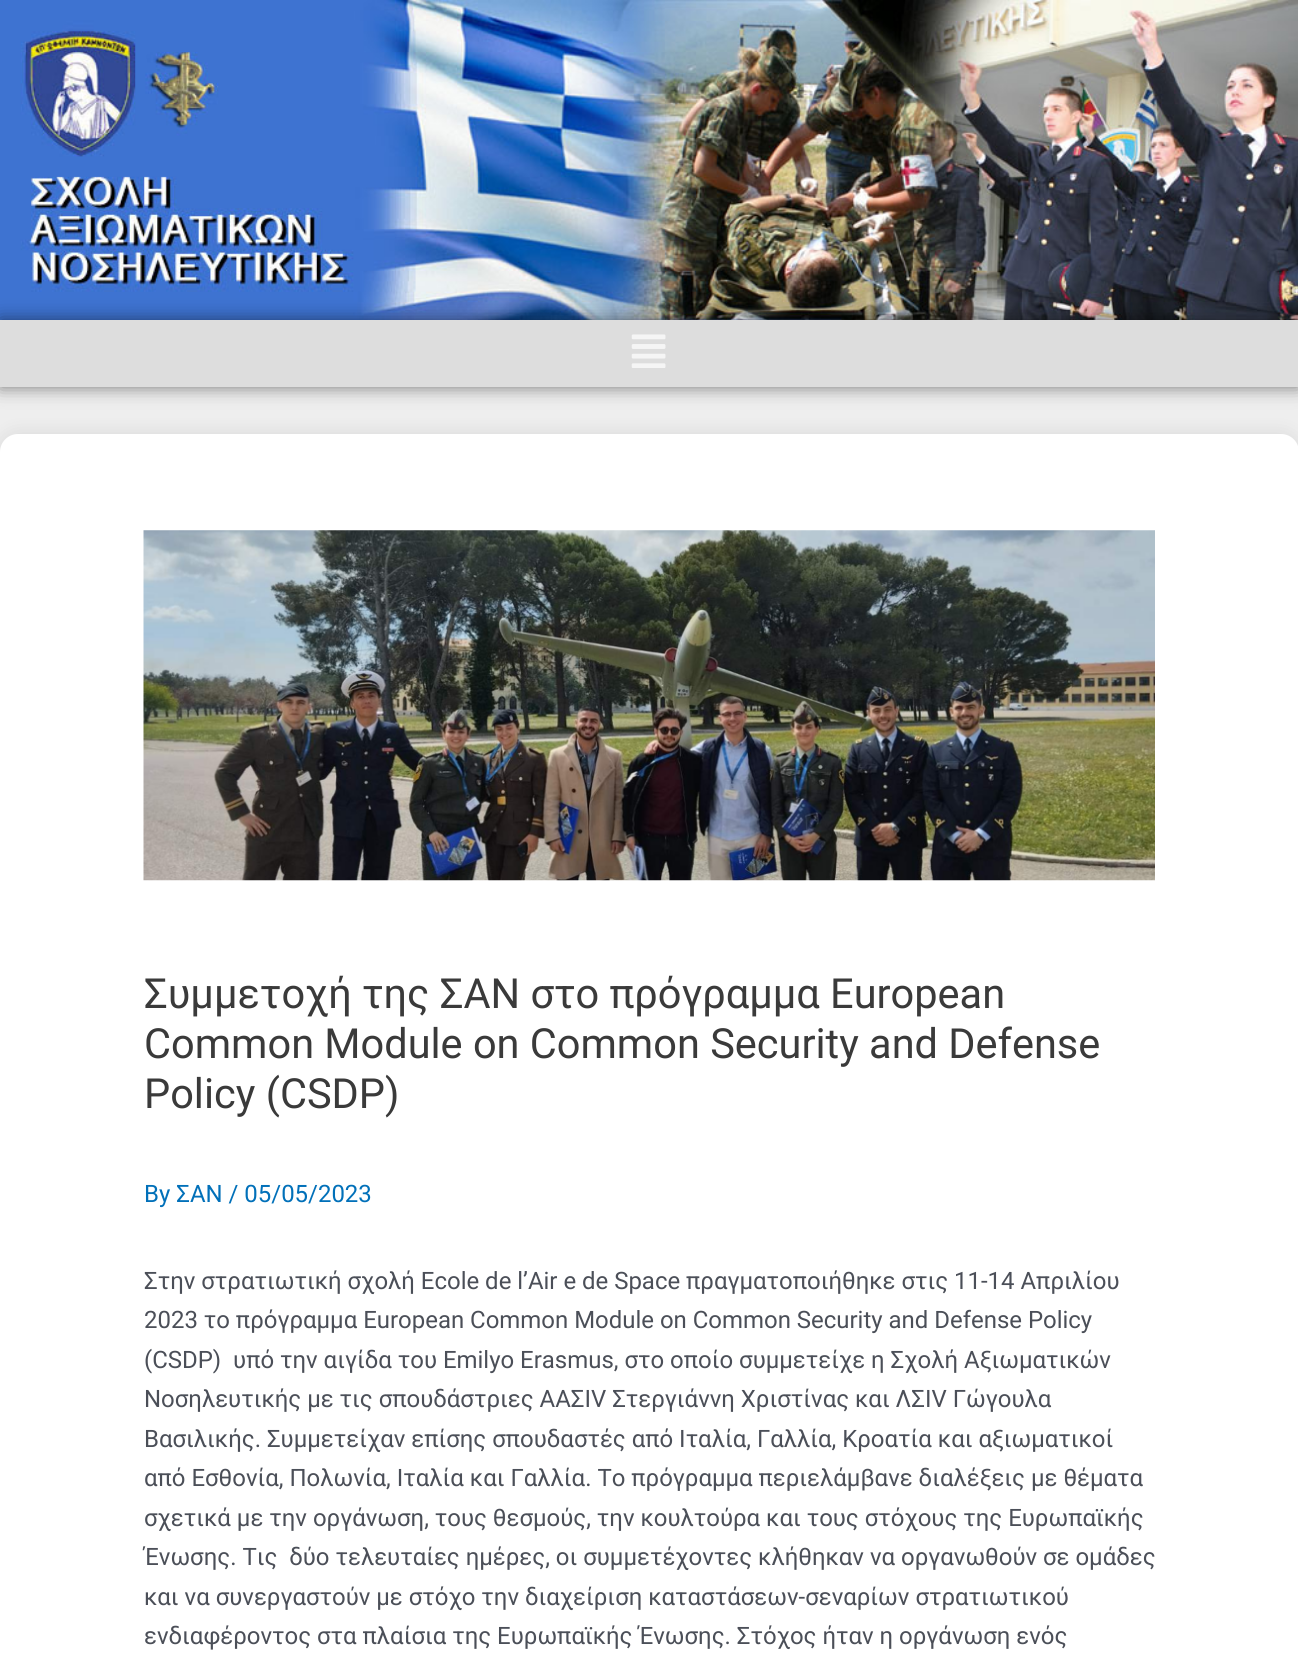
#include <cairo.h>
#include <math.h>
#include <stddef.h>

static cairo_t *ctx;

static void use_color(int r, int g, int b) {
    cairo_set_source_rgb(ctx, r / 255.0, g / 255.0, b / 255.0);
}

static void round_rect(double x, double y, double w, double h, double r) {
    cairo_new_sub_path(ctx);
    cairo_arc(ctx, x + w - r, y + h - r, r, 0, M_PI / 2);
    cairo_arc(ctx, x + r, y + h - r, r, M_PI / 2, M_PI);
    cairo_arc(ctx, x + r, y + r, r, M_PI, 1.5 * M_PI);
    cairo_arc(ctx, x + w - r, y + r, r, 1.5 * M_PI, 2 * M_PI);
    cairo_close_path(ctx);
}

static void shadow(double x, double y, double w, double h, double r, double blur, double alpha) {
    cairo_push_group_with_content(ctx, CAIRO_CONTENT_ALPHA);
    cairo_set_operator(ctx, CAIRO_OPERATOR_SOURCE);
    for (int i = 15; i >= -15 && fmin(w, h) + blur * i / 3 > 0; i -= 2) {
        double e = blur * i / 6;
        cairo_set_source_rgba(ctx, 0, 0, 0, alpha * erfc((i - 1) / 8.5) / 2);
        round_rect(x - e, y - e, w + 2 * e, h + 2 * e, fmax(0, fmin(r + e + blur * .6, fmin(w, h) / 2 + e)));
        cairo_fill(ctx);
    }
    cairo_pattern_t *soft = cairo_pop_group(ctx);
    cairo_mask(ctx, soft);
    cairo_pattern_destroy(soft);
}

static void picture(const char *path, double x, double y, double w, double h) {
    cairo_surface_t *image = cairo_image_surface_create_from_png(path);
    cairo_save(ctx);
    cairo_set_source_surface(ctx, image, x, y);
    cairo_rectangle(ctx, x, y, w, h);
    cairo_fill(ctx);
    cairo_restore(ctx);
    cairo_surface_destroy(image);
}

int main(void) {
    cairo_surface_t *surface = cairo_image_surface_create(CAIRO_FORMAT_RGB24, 1298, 1675);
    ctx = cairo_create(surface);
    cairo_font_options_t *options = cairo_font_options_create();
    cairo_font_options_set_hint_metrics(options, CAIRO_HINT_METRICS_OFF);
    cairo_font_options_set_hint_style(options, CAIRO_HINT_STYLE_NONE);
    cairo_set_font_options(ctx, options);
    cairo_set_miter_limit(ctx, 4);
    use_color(238, 238, 238);
    cairo_paint(ctx);
    picture("img1.png", 0, 0, 1298, 320);
    use_color(0, 0, 0);
    shadow(0, 320, 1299, 67, 0, 9, 0.5);
    use_color(221, 221, 221);
    cairo_rectangle(ctx, 0, 320, 1298, 67);
    cairo_fill(ctx);
    picture("img2.png", 631, 334, 35, 34);
    use_color(0, 0, 0);
    shadow(0, 434, 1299, 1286, 18, 9, 0.1);
    use_color(255, 255, 255);
    round_rect(0, 434, 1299, 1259, 18);
    cairo_fill(ctx);
    picture("img3.png", 143, 530, 1012, 351);
    cairo_select_font_face(ctx, "Roboto", CAIRO_FONT_SLANT_NORMAL, CAIRO_FONT_WEIGHT_NORMAL);
    cairo_set_font_size(ctx, 41.5);
    use_color(58, 58, 58);
    cairo_move_to(ctx, 144, 1008);
    cairo_show_text(ctx, "Συμμετοχή της ΣΑΝ στο πρόγραμμα European");
    cairo_move_to(ctx, 144, 1058);
    cairo_show_text(ctx, "Common Module on Common Security and Defense");
    cairo_move_to(ctx, 144, 1108);
    cairo_show_text(ctx, "Policy (CSDP)");
    cairo_set_font_size(ctx, 23.95);
    use_color(1, 112, 185);
    cairo_move_to(ctx, 144, 1202);
    cairo_show_text(ctx, "By ΣΑΝ / 05/05/2023");
    use_color(75, 79, 88);
    cairo_move_to(ctx, 144, 1289);
    cairo_show_text(ctx, "Στην στρατιωτική σχολή Ecole de l’Air e de Space πραγματοποιήθηκε στις 11-14 Απριλίου");
    cairo_move_to(ctx, 144, 1328);
    cairo_show_text(ctx, "2023 το πρόγραμμα European Common Module on Common Security and Defense Policy");
    cairo_move_to(ctx, 144, 1368);
    cairo_show_text(ctx, "(CSDP)  υπό την αιγίδα του Emilyo Erasmus, στο οποίο συμμετείχε η Σχολή Αξιωματικών");
    cairo_move_to(ctx, 144, 1407);
    cairo_show_text(ctx, "Νοσηλευτικής με τις σπουδάστριες ΑΑΣΙV Στεργιάννη Χριστίνας και ΛΣΙV Γώγουλα");
    cairo_move_to(ctx, 144, 1447);
    cairo_show_text(ctx, "Βασιλικής. Συμμετείχαν επίσης σπουδαστές από Ιταλία, Γαλλία, Κροατία και αξιωματικοί");
    cairo_move_to(ctx, 144, 1486);
    cairo_show_text(ctx, "από Εσθονία, Πολωνία, Ιταλία και Γαλλία. Το πρόγραμμα περιελάμβανε διαλέξεις με θέματα");
    cairo_move_to(ctx, 144, 1526);
    cairo_show_text(ctx, "σχετικά με την οργάνωση, τους θεσμούς, την κουλτούρα και τους στόχους της Ευρωπαϊκής");
    cairo_move_to(ctx, 144, 1565);
    cairo_show_text(ctx, "Ένωσης. Τις  δύο τελευταίες ημέρες, οι συμμετέχοντες κλήθηκαν να οργανωθούν σε ομάδες");
    cairo_move_to(ctx, 144, 1605);
    cairo_show_text(ctx, "και να συνεργαστούν με στόχο την διαχείριση καταστάσεων-σεναρίων στρατιωτικού");
    cairo_move_to(ctx, 144, 1644);
    cairo_show_text(ctx, "ενδιαφέροντος στα πλαίσια της Ευρωπαϊκής Ένωσης. Στόχος ήταν η οργάνωση ενός");
    cairo_surface_write_to_png(surface, "result.png");
    cairo_font_options_destroy(options);
    cairo_destroy(ctx);
    cairo_surface_destroy(surface);
    return 0;
}
